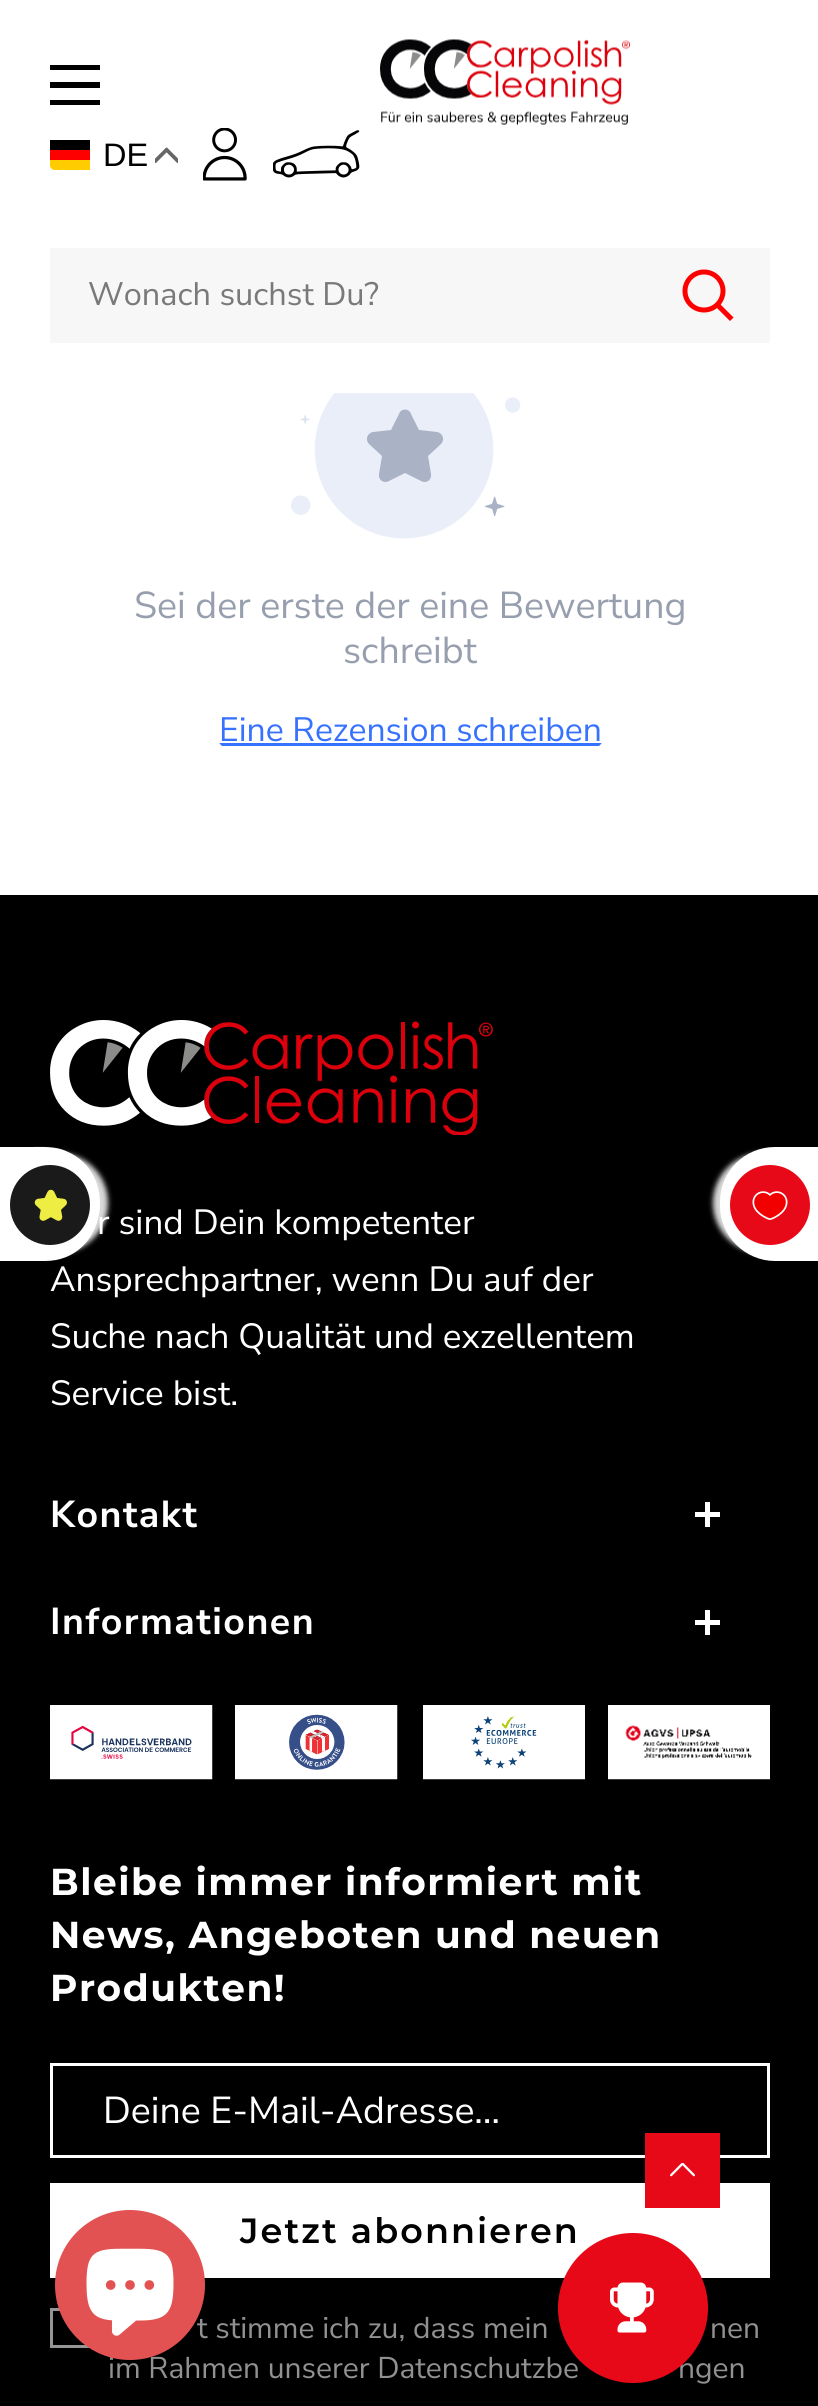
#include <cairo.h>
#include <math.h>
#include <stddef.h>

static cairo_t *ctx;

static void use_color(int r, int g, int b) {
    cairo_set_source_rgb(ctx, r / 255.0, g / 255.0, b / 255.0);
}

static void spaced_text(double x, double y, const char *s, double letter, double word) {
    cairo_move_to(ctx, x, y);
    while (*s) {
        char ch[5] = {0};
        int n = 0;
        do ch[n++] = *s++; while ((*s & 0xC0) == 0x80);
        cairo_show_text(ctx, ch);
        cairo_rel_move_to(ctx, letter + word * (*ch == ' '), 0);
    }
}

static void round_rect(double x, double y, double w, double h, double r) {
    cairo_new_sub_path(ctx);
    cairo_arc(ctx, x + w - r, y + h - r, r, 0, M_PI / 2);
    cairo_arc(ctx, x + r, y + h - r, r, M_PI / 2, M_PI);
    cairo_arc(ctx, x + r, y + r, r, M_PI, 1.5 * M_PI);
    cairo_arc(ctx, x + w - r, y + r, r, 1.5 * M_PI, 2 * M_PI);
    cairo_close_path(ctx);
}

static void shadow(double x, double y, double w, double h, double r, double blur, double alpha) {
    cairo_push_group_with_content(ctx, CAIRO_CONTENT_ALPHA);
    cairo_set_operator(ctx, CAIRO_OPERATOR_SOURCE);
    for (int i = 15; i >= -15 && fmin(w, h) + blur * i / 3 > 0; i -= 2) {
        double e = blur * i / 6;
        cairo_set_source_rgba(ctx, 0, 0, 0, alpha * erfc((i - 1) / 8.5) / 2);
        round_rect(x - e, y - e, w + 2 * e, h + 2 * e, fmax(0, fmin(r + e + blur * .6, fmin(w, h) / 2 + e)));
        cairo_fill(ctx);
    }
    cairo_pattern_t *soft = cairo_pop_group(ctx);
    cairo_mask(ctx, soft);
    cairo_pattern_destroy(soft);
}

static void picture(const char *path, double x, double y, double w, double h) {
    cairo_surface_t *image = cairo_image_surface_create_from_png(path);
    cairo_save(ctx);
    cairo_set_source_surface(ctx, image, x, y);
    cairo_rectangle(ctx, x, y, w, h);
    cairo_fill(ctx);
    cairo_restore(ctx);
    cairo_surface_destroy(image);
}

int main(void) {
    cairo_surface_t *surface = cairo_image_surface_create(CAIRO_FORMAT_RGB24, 818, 2406);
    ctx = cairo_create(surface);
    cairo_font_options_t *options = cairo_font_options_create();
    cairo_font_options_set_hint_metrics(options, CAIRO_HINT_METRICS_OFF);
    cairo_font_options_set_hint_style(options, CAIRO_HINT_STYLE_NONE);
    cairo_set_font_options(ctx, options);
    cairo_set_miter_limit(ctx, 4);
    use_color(255, 255, 255);
    cairo_paint(ctx);
    use_color(0, 0, 0);
    cairo_set_fill_rule(ctx, CAIRO_FILL_RULE_EVEN_ODD);
    cairo_new_path(ctx);
    cairo_move_to(ctx, 50, 100);
    cairo_line_to(ctx, 100, 100);
    cairo_line_to(ctx, 100, 105);
    cairo_line_to(ctx, 50, 105);
    cairo_close_path(ctx);
    cairo_move_to(ctx, 50, 65);
    cairo_line_to(ctx, 100, 65);
    cairo_line_to(ctx, 100, 70);
    cairo_line_to(ctx, 50, 70);
    cairo_close_path(ctx);
    cairo_move_to(ctx, 50, 82);
    cairo_line_to(ctx, 100, 82);
    cairo_line_to(ctx, 100, 88);
    cairo_line_to(ctx, 50, 88);
    cairo_close_path(ctx);
    cairo_fill(ctx);
    picture("img1.png", 380, 39, 250, 86);
    use_color(255, 204, 0);
    cairo_new_path(ctx);
    cairo_move_to(ctx, 50, 160);
    cairo_line_to(ctx, 90, 160);
    cairo_line_to(ctx, 90, 170);
    cairo_line_to(ctx, 55, 170);
    cairo_curve_to(ctx, 52, 170, 50, 168, 50, 165);
    cairo_close_path(ctx);
    cairo_fill(ctx);
    use_color(0, 0, 0);
    cairo_rectangle(ctx, 50, 140, 40, 10);
    cairo_fill(ctx);
    use_color(255, 0, 0);
    cairo_rectangle(ctx, 50, 150, 40, 10);
    cairo_fill(ctx);
    cairo_select_font_face(ctx, "Liberation Sans", CAIRO_FONT_SLANT_NORMAL, CAIRO_FONT_WEIGHT_NORMAL);
    cairo_set_font_size(ctx, 32.5);
    use_color(0, 0, 0);
    cairo_move_to(ctx, 103, 166);
    cairo_show_text(ctx, "DE");
    picture("img2.png", 155, 147, 23, 16);
    picture("img3.png", 203, 128, 44, 53);
    picture("img4.png", 273, 130, 87, 48);
    use_color(247, 247, 247);
    cairo_rectangle(ctx, 50, 248, 720, 95);
    cairo_fill(ctx);
    cairo_select_font_face(ctx, "Nunito Sans", CAIRO_FONT_SLANT_NORMAL, CAIRO_FONT_WEIGHT_NORMAL);
    use_color(121, 121, 121);
    cairo_move_to(ctx, 88, 305);
    cairo_show_text(ctx, "Wonach suchst Du?");
    cairo_new_path(ctx);
    cairo_move_to(ctx, 730, 317.5);
    cairo_line_to(ctx, 717.5, 305);
    use_color(255, 0, 0);
    cairo_set_line_width(ctx, 5);
    cairo_set_line_cap(ctx, CAIRO_LINE_CAP_SQUARE);
    cairo_stroke(ctx);
    cairo_arc(ctx, 704, 291, 19, 0, 2 * M_PI);
    cairo_set_line_cap(ctx, CAIRO_LINE_CAP_BUTT);
    cairo_stroke(ctx);
    picture("img5.png", 291, 393, 230, 146);
    use_color(170, 178, 197);
    cairo_set_fill_rule(ctx, CAIRO_FILL_RULE_WINDING);
    cairo_new_path(ctx);
    cairo_move_to(ctx, 411, 414);
    cairo_curve_to(ctx, 409, 408, 401, 408, 399, 414);
    cairo_line_to(ctx, 391, 430);
    cairo_line_to(ctx, 373, 432);
    cairo_curve_to(ctx, 367, 433, 365, 440, 369, 444);
    cairo_line_to(ctx, 382, 456);
    cairo_line_to(ctx, 379, 474);
    cairo_curve_to(ctx, 378, 480, 384, 484, 389, 481);
    cairo_line_to(ctx, 405, 473);
    cairo_line_to(ctx, 421, 481);
    cairo_curve_to(ctx, 426, 484, 432, 480, 431, 474);
    cairo_line_to(ctx, 428, 456);
    cairo_line_to(ctx, 441, 444);
    cairo_curve_to(ctx, 445, 440, 443, 433, 437, 432);
    cairo_line_to(ctx, 419, 430);
    cairo_close_path(ctx);
    cairo_fill(ctx);
    cairo_set_font_size(ctx, 37.5);
    use_color(151, 159, 175);
    cairo_move_to(ctx, 134, 618);
    cairo_show_text(ctx, "Sei der erste der eine Bewertung");
    cairo_move_to(ctx, 343, 663);
    cairo_show_text(ctx, "schreibt");
    cairo_set_font_size(ctx, 33.75);
    use_color(55, 114, 255);
    cairo_move_to(ctx, 219, 741);
    cairo_show_text(ctx, "Eine Rezension schreiben");
    cairo_save(ctx);
    round_rect(218, 713, 385, 35, 10);
    cairo_clip(ctx);
    cairo_rectangle(ctx, 218, 743, 385, 3);
    cairo_fill(ctx);
    cairo_restore(ctx);
    use_color(0, 0, 0);
    cairo_rectangle(ctx, 0, 895, 818, 1511);
    cairo_fill(ctx);
    use_color(218, 218, 218);
    shadow(-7, 1153, 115, 100, 55, 2.5, 1);
    use_color(255, 255, 255);
    cairo_new_path(ctx);
    cairo_move_to(ctx, 0, 1261);
    cairo_line_to(ctx, 0, 1147);
    cairo_line_to(ctx, 30, 1147);
    cairo_curve_to(ctx, 42, 1147, 55, 1146, 66, 1151);
    cairo_curve_to(ctx, 121, 1174, 106, 1261, 45, 1261);
    cairo_close_path(ctx);
    cairo_fill(ctx);
    use_color(26, 26, 26);
    cairo_arc(ctx, 50, 1205, 40, 0, 2 * M_PI);
    cairo_fill(ctx);
    picture("img6.png", 34, 1189, 33, 32);
    use_color(218, 218, 218);
    shadow(713, 1153, 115, 100, 55, 2.5, 1);
    use_color(255, 255, 255);
    cairo_new_path(ctx);
    cairo_move_to(ctx, 720, 1206);
    cairo_line_to(ctx, 720, 1202);
    cairo_curve_to(ctx, 720, 1171, 745, 1147, 775, 1147);
    cairo_line_to(ctx, 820, 1147);
    cairo_line_to(ctx, 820, 1261);
    cairo_line_to(ctx, 775, 1261);
    cairo_curve_to(ctx, 745, 1261, 720, 1236, 720, 1206);
    cairo_close_path(ctx);
    cairo_fill(ctx);
    use_color(232, 9, 24);
    cairo_arc(ctx, 770, 1205, 40, 0, 2 * M_PI);
    cairo_fill(ctx);
    picture("img7.png", 752, 1191, 36, 29);
    use_color(255, 255, 255);
    cairo_rectangle(ctx, 50, 2183, 720, 95);
    cairo_fill(ctx);
    cairo_select_font_face(ctx, "Montserrat SemiBold", CAIRO_FONT_SLANT_NORMAL, CAIRO_FONT_WEIGHT_NORMAL);
    cairo_set_font_size(ctx, 35);
    use_color(0, 0, 0);
    spaced_text(240, 2243, "Jetzt abonnieren", 2.1, 0);
    cairo_select_font_face(ctx, "Nunito Sans", CAIRO_FONT_SLANT_NORMAL, CAIRO_FONT_WEIGHT_NORMAL);
    cairo_set_font_size(ctx, 30);
    use_color(145, 145, 145);
    cairo_move_to(ctx, 108, 2378);
    cairo_show_text(ctx, "im Rahmen unserer Datenschutzbe");
    cairo_move_to(ctx, 678, 2378);
    cairo_show_text(ctx, "ngen");
    use_color(232, 9, 24);
    cairo_new_path(ctx);
    cairo_arc(ctx, 633, 2308, 75, 0, 2 * M_PI);
    cairo_fill(ctx);
    picture("img8.png", 610, 2282, 44, 51);
    picture("img9.png", 50, 1020, 443, 115);
    cairo_set_font_size(ctx, 35);
    use_color(255, 255, 255);
    cairo_move_to(ctx, 97, 1234);
    cairo_show_text(ctx, "r sind Dein kompetenter");
    cairo_move_to(ctx, 50, 1291);
    cairo_show_text(ctx, "Ansprechpartner, wenn Du auf der");
    cairo_move_to(ctx, 50, 1348);
    cairo_show_text(ctx, "Suche nach Qualität und exzellentem");
    cairo_move_to(ctx, 50, 1405);
    cairo_show_text(ctx, "Service bist.");
    cairo_select_font_face(ctx, "Nunito Sans", CAIRO_FONT_SLANT_NORMAL, CAIRO_FONT_WEIGHT_BOLD);
    cairo_set_font_size(ctx, 37.5);
    spaced_text(50, 1527, "Kontakt", 1.5, 0);
    cairo_rectangle(ctx, 705, 1502, 5, 25);
    cairo_fill(ctx);
    cairo_rectangle(ctx, 695, 1512, 25, 5);
    cairo_fill(ctx);
    spaced_text(50, 1634, "Informationen", 1.5, 0);
    cairo_rectangle(ctx, 705, 1610, 5, 25);
    cairo_fill(ctx);
    cairo_rectangle(ctx, 695, 1620, 25, 5);
    cairo_fill(ctx);
    picture("img10.png", 50, 1705, 163, 75);
    picture("img11.png", 235, 1705, 163, 75);
    picture("img12.png", 423, 1705, 162, 75);
    picture("img13.png", 608, 1705, 162, 75);
    cairo_select_font_face(ctx, "Montserrat", CAIRO_FONT_SLANT_NORMAL, CAIRO_FONT_WEIGHT_BOLD);
    spaced_text(50, 1895, "Bleibe immer informiert mit", 1.5, 0);
    spaced_text(50, 1948, "News, Angeboten und neuen", 1.5, 0);
    spaced_text(50, 2001, "Produkten!", 1.5, 0);
    cairo_rectangle(ctx, 51.5, 2064.5, 717, 92);
    cairo_set_line_width(ctx, 3);
    cairo_stroke(ctx);
    cairo_select_font_face(ctx, "Nunito Sans", CAIRO_FONT_SLANT_NORMAL, CAIRO_FONT_WEIGHT_NORMAL);
    cairo_move_to(ctx, 103, 2123);
    cairo_show_text(ctx, "Deine E-Mail-Adresse…");
    cairo_rectangle(ctx, 51.5, 2309.5, 37, 37);
    use_color(149, 149, 149);
    cairo_stroke(ctx);
    cairo_set_font_size(ctx, 30);
    use_color(145, 145, 145);
    cairo_move_to(ctx, 197, 2338);
    cairo_show_text(ctx, "t stimme ich zu, dass mein");
    cairo_move_to(ctx, 710, 2338);
    cairo_show_text(ctx, "nen");
    use_color(232, 9, 24);
    cairo_rectangle(ctx, 645, 2133, 75, 75);
    cairo_fill(ctx);
    picture("img14.png", 670, 2163, 25, 14);
    use_color(226, 82, 82);
    cairo_arc(ctx, 130, 2285, 75, 0, 2 * M_PI);
    cairo_fill(ctx);
    picture("img15.png", 86, 2248, 88, 88);
    cairo_surface_write_to_png(surface, "result.png");
    cairo_font_options_destroy(options);
    cairo_destroy(ctx);
    cairo_surface_destroy(surface);
    return 0;
}
